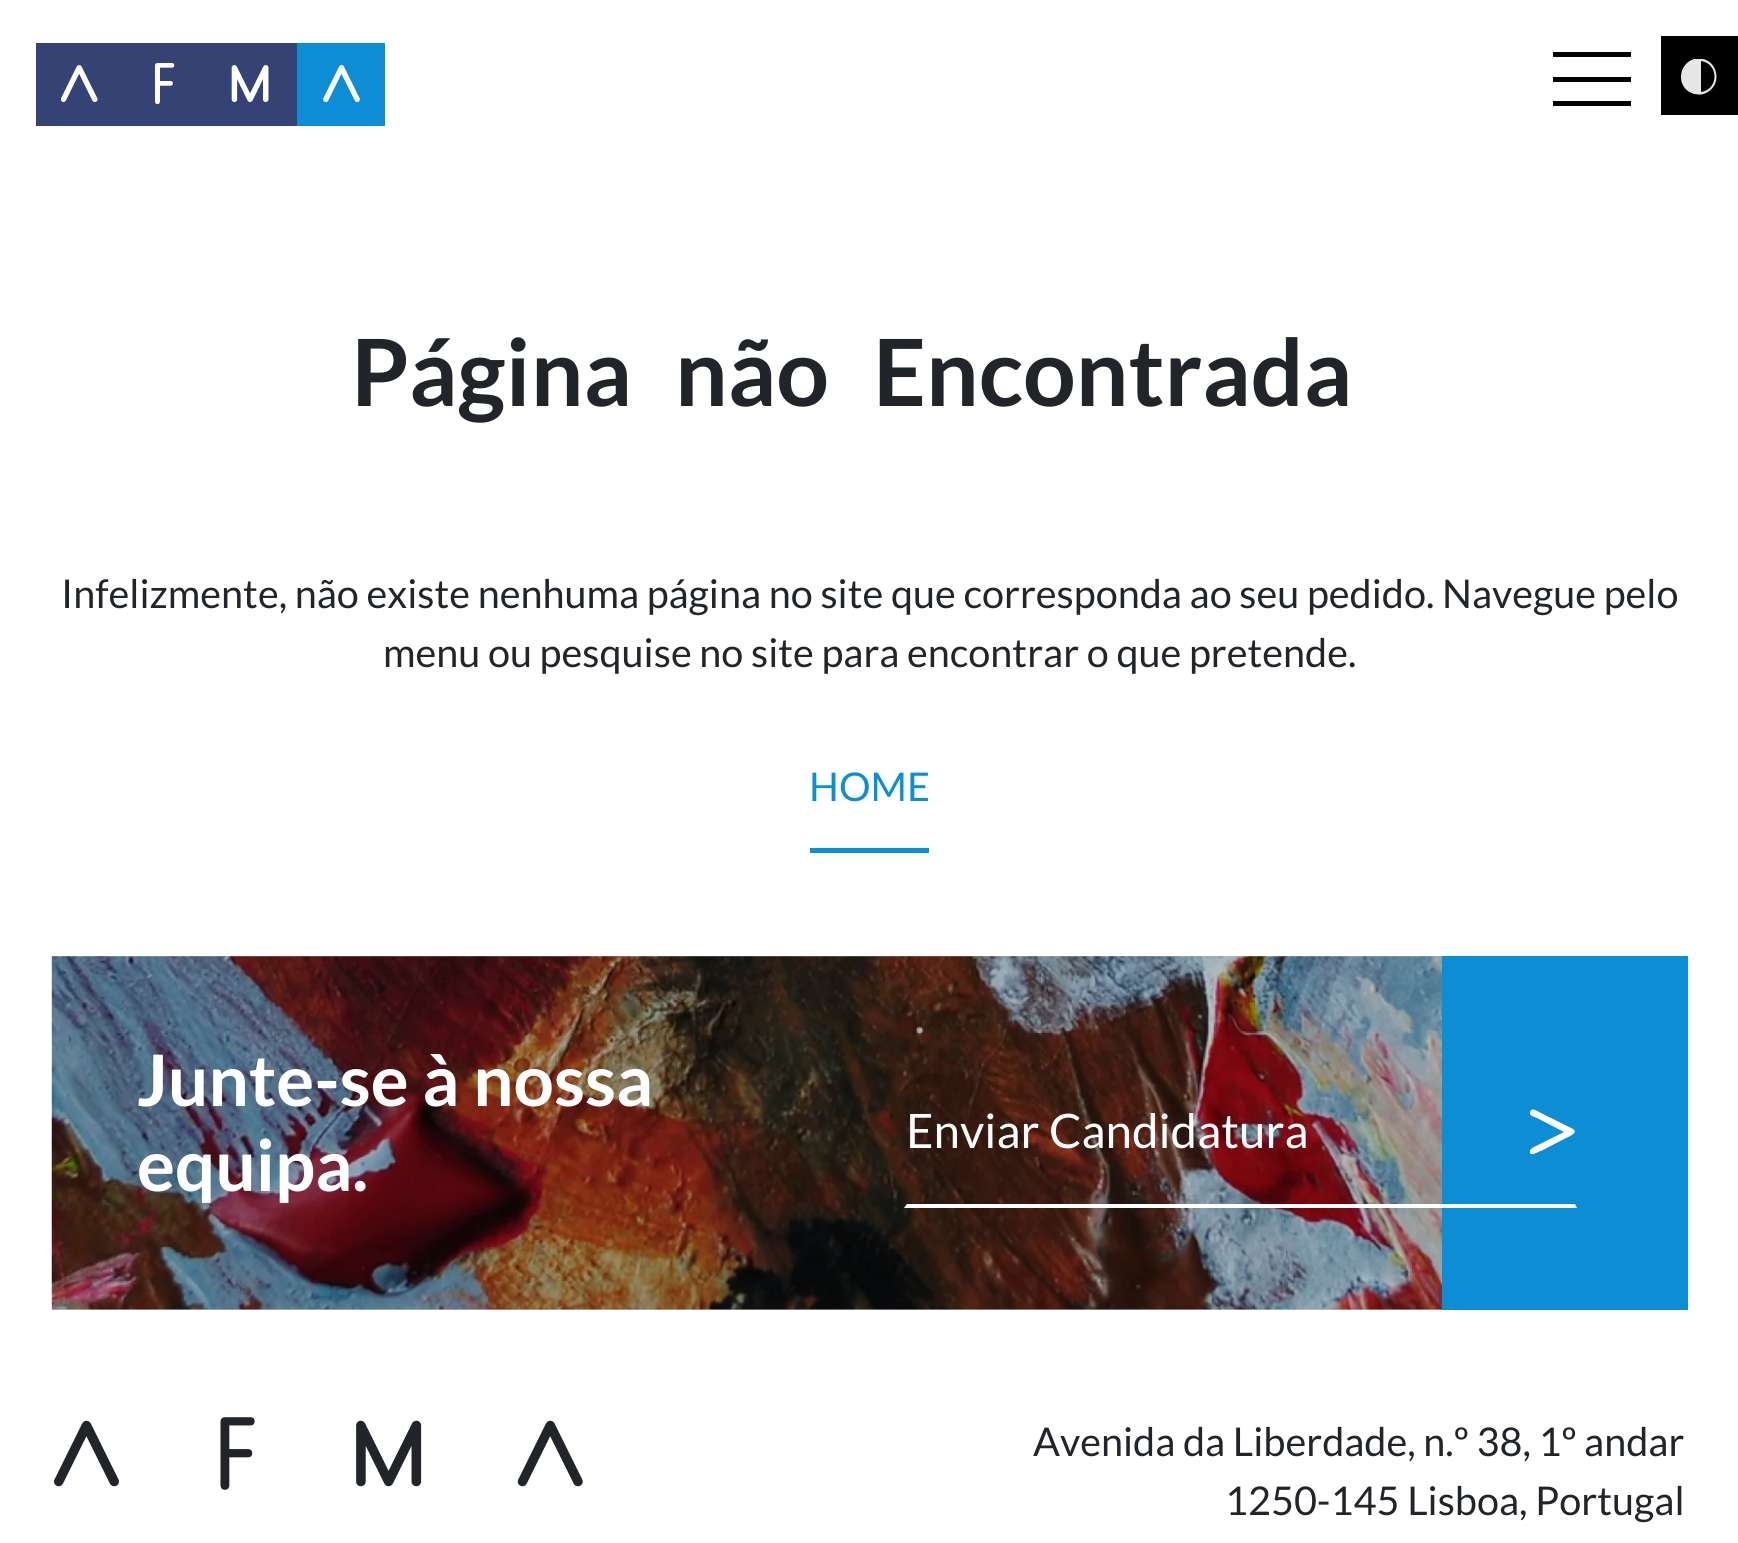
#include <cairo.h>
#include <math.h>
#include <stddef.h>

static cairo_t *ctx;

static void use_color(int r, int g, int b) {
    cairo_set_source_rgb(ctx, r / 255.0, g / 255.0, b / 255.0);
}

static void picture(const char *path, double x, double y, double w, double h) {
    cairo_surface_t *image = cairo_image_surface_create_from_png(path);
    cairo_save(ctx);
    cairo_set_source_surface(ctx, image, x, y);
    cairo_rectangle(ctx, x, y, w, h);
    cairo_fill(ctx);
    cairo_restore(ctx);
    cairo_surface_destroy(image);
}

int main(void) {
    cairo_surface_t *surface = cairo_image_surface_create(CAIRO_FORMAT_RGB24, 1738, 1543);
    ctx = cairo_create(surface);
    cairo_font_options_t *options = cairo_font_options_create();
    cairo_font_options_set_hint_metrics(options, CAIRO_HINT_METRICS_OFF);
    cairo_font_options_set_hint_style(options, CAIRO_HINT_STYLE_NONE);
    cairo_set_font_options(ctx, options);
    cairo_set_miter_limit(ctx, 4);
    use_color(255, 255, 255);
    cairo_paint(ctx);
    use_color(204, 204, 204);
    cairo_rectangle(ctx, 52, 956, 1390, 354);
    cairo_fill(ctx);
    use_color(52, 66, 116);
    cairo_rectangle(ctx, 36, 43, 261, 83);
    cairo_fill(ctx);
    use_color(13, 142, 212);
    cairo_rectangle(ctx, 297, 43, 88, 83);
    cairo_fill(ctx);
    picture("img1.png", 61, 63, 299, 42);
    use_color(0, 0, 0);
    cairo_rectangle(ctx, 1553, 52, 78, 5);
    cairo_fill(ctx);
    cairo_rectangle(ctx, 1553, 77, 78, 5);
    cairo_fill(ctx);
    cairo_rectangle(ctx, 1553, 101, 78, 5);
    cairo_fill(ctx);
    cairo_rectangle(ctx, 1661, 36, 77, 79);
    cairo_fill(ctx);
    cairo_save(ctx);
    cairo_rectangle(ctx, 1681, 59, 36, 36);
    cairo_clip(ctx);
    use_color(230, 230, 230);
    cairo_set_fill_rule(ctx, CAIRO_FILL_RULE_EVEN_ODD);
    cairo_new_path(ctx);
    cairo_move_to(ctx, 1699, 58.5);
    cairo_curve_to(ctx, 1679.5, 58.5, 1674, 85.5, 1691.5, 93);
    cairo_curve_to(ctx, 1694.5, 94.5, 1695.5, 94, 1699, 94.5);
    cairo_curve_to(ctx, 1701.5, 95, 1705, 93.5, 1707, 92.5);
    cairo_curve_to(ctx, 1723.5, 83.5, 1717, 58.5, 1699, 58.5);
    cairo_close_path(ctx);
    cairo_move_to(ctx, 1701, 61);
    cairo_curve_to(ctx, 1719, 63.5, 1719, 89.5, 1701, 92);
    cairo_close_path(ctx);
    cairo_fill(ctx);
    cairo_restore(ctx);
    cairo_select_font_face(ctx, "Lato", CAIRO_FONT_SLANT_NORMAL, CAIRO_FONT_WEIGHT_BOLD);
    cairo_set_font_size(ctx, 92.75);
    use_color(33, 37, 41);
    cairo_move_to(ctx, 351, 406);
    cairo_show_text(ctx, "Página");
    cairo_move_to(ctx, 675, 406);
    cairo_show_text(ctx, "não");
    cairo_move_to(ctx, 873, 406);
    cairo_show_text(ctx, "Encontrada");
    cairo_select_font_face(ctx, "Lato", CAIRO_FONT_SLANT_NORMAL, CAIRO_FONT_WEIGHT_NORMAL);
    cairo_set_font_size(ctx, 39.6);
    cairo_move_to(ctx, 61, 608);
    cairo_show_text(ctx, "Infelizmente, não existe nenhuma página no site que corresponda ao seu pedido. Navegue pelo");
    cairo_move_to(ctx, 383, 667);
    cairo_show_text(ctx, "menu ou pesquise no site para encontrar o que pretende.");
    use_color(13, 142, 212);
    cairo_move_to(ctx, 809, 801);
    cairo_show_text(ctx, "HOME");
    cairo_rectangle(ctx, 810, 848, 119, 5);
    cairo_fill(ctx);
    picture("img2.png", 51, 956, 1391, 354);
    cairo_rectangle(ctx, 1442, 956, 246, 354);
    cairo_fill(ctx);
    cairo_select_font_face(ctx, "Lato", CAIRO_FONT_SLANT_NORMAL, CAIRO_FONT_WEIGHT_BOLD);
    cairo_set_font_size(ctx, 71);
    use_color(255, 255, 255);
    cairo_move_to(ctx, 137, 1106);
    cairo_show_text(ctx, "Junte-se à nossa");
    cairo_move_to(ctx, 137, 1191);
    cairo_show_text(ctx, "equipa.");
    cairo_new_path(ctx);
    cairo_move_to(ctx, 1577, 1208);
    cairo_line_to(ctx, 904, 1208);
    cairo_line_to(ctx, 907, 1204);
    cairo_line_to(ctx, 1575, 1204);
    cairo_close_path(ctx);
    cairo_fill(ctx);
    cairo_select_font_face(ctx, "Lato", CAIRO_FONT_SLANT_NORMAL, CAIRO_FONT_WEIGHT_NORMAL);
    cairo_set_font_size(ctx, 47.5);
    cairo_move_to(ctx, 906, 1148);
    cairo_show_text(ctx, "Enviar Candidatura");
    cairo_save(ctx);
    cairo_rectangle(ctx, 1530, 1105, 45, 56);
    cairo_clip(ctx);
    cairo_set_fill_rule(ctx, CAIRO_FILL_RULE_EVEN_ODD);
    cairo_new_path(ctx);
    cairo_move_to(ctx, 1535, 1110);
    cairo_line_to(ctx, 1573, 1129);
    cairo_curve_to(ctx, 1579, 1133, 1568, 1137, 1566, 1138);
    cairo_line_to(ctx, 1541, 1151);
    cairo_curve_to(ctx, 1539, 1151, 1534, 1155, 1531, 1154);
    cairo_curve_to(ctx, 1526, 1150, 1536, 1146, 1538, 1145);
    cairo_line_to(ctx, 1564, 1132);
    cairo_line_to(ctx, 1537, 1118);
    cairo_curve_to(ctx, 1535, 1117, 1529, 1116, 1530, 1112);
    cairo_curve_to(ctx, 1531, 1109, 1533, 1109, 1535, 1110);
    cairo_close_path(ctx);
    cairo_fill(ctx);
    cairo_restore(ctx);
    picture("img3.png", 54, 1417, 529, 73);
    cairo_set_font_size(ctx, 39.6);
    use_color(33, 37, 41);
    cairo_move_to(ctx, 1033, 1456);
    cairo_show_text(ctx, "Avenida da Liberdade, n.º 38, 1º andar");
    cairo_move_to(ctx, 1225, 1515);
    cairo_show_text(ctx, "1250-145 Lisboa, Portugal");
    cairo_surface_write_to_png(surface, "result.png");
    cairo_font_options_destroy(options);
    cairo_destroy(ctx);
    cairo_surface_destroy(surface);
    return 0;
}
